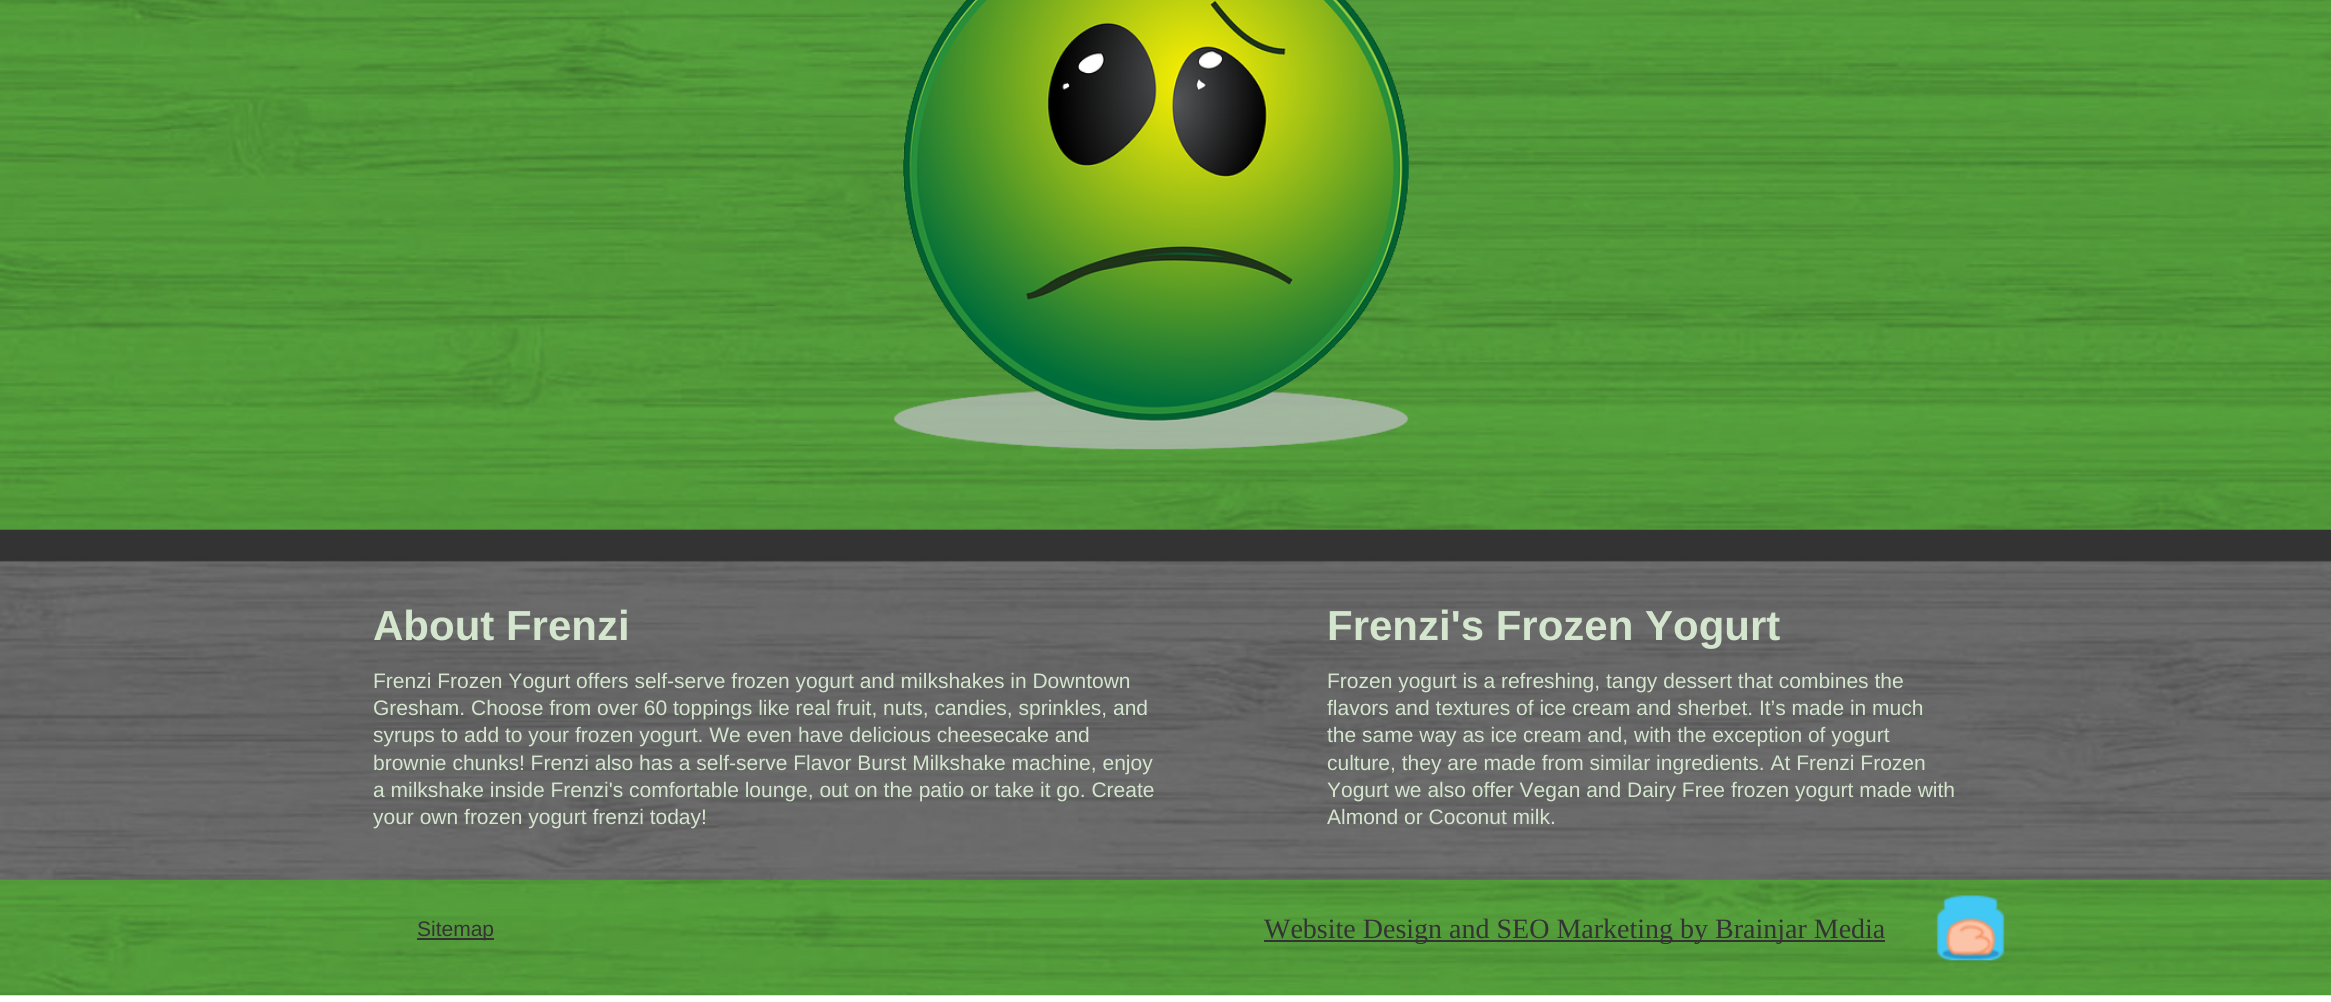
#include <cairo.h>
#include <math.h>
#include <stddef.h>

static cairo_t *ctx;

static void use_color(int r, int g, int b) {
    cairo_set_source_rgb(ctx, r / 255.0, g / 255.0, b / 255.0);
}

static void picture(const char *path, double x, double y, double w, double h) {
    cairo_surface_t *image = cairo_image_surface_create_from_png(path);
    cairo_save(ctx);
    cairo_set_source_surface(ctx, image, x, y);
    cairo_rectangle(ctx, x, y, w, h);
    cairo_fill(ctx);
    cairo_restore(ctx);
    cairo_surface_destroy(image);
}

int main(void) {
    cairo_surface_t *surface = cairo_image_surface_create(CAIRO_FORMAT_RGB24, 2331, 1002);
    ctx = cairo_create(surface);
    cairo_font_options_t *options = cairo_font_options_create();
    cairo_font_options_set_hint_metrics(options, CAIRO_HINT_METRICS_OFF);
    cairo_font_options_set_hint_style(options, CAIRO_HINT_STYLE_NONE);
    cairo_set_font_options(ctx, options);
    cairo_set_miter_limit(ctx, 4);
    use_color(255, 255, 255);
    cairo_paint(ctx);
    picture("img1.png", 0, 0, 2331, 996);
    picture("img2.png", 894, 0, 515, 450);
    picture("img3.png", 0, 529, 2331, 351);
    cairo_select_font_face(ctx, "Liberation Sans", CAIRO_FONT_SLANT_NORMAL, CAIRO_FONT_WEIGHT_BOLD);
    cairo_set_font_size(ctx, 42);
    use_color(212, 230, 206);
    cairo_move_to(ctx, 373, 640);
    cairo_show_text(ctx, "About Frenzi");
    cairo_move_to(ctx, 1327, 640);
    cairo_show_text(ctx, "Frenzi's Frozen Yogurt");
    cairo_select_font_face(ctx, "Liberation Sans", CAIRO_FONT_SLANT_NORMAL, CAIRO_FONT_WEIGHT_NORMAL);
    cairo_set_font_size(ctx, 21);
    cairo_move_to(ctx, 373, 688);
    cairo_show_text(ctx, "Frenzi Frozen Yogurt offers self-serve frozen yogurt and milkshakes in Downtown");
    cairo_move_to(ctx, 373, 715);
    cairo_show_text(ctx, "Gresham. Choose from over 60 toppings like real fruit, nuts, candies, sprinkles, and");
    cairo_move_to(ctx, 373, 742);
    cairo_show_text(ctx, "syrups to add to your frozen yogurt. We even have delicious cheesecake and");
    cairo_move_to(ctx, 373, 770);
    cairo_show_text(ctx, "brownie chunks! Frenzi also has a self-serve Flavor Burst Milkshake machine, enjoy");
    cairo_move_to(ctx, 373, 797);
    cairo_show_text(ctx, "a milkshake inside Frenzi's comfortable lounge, out on the patio or take it go. Create");
    cairo_move_to(ctx, 373, 824);
    cairo_show_text(ctx, "your own frozen yogurt frenzi today!");
    cairo_move_to(ctx, 1327, 688);
    cairo_show_text(ctx, "Frozen yogurt is a refreshing, tangy dessert that combines the");
    cairo_move_to(ctx, 1327, 715);
    cairo_show_text(ctx, "flavors and textures of ice cream and sherbet. It’s made in much");
    cairo_move_to(ctx, 1327, 742);
    cairo_show_text(ctx, "the same way as ice cream and, with the exception of yogurt");
    cairo_move_to(ctx, 1327, 770);
    cairo_show_text(ctx, "culture, they are made from similar ingredients. At Frenzi Frozen");
    cairo_move_to(ctx, 1327, 797);
    cairo_show_text(ctx, "Yogurt we also offer Vegan and Dairy Free frozen yogurt made with");
    cairo_move_to(ctx, 1327, 824);
    cairo_show_text(ctx, "Almond or Coconut milk.");
    use_color(51, 51, 51);
    cairo_rectangle(ctx, 417, 938, 77, 2);
    cairo_fill(ctx);
    cairo_move_to(ctx, 417, 936);
    cairo_show_text(ctx, "Sitemap");
    cairo_rectangle(ctx, 1264, 940, 621, 2);
    cairo_fill(ctx);
    cairo_select_font_face(ctx, "Liberation Serif", CAIRO_FONT_SLANT_NORMAL, CAIRO_FONT_WEIGHT_NORMAL);
    cairo_set_font_size(ctx, 28);
    cairo_move_to(ctx, 1264, 938);
    cairo_show_text(ctx, "Website Design and SEO Marketing by Brainjar Media");
    picture("img4.png", 1936, 895, 69, 66);
    cairo_surface_write_to_png(surface, "result.png");
    cairo_font_options_destroy(options);
    cairo_destroy(ctx);
    cairo_surface_destroy(surface);
    return 0;
}
